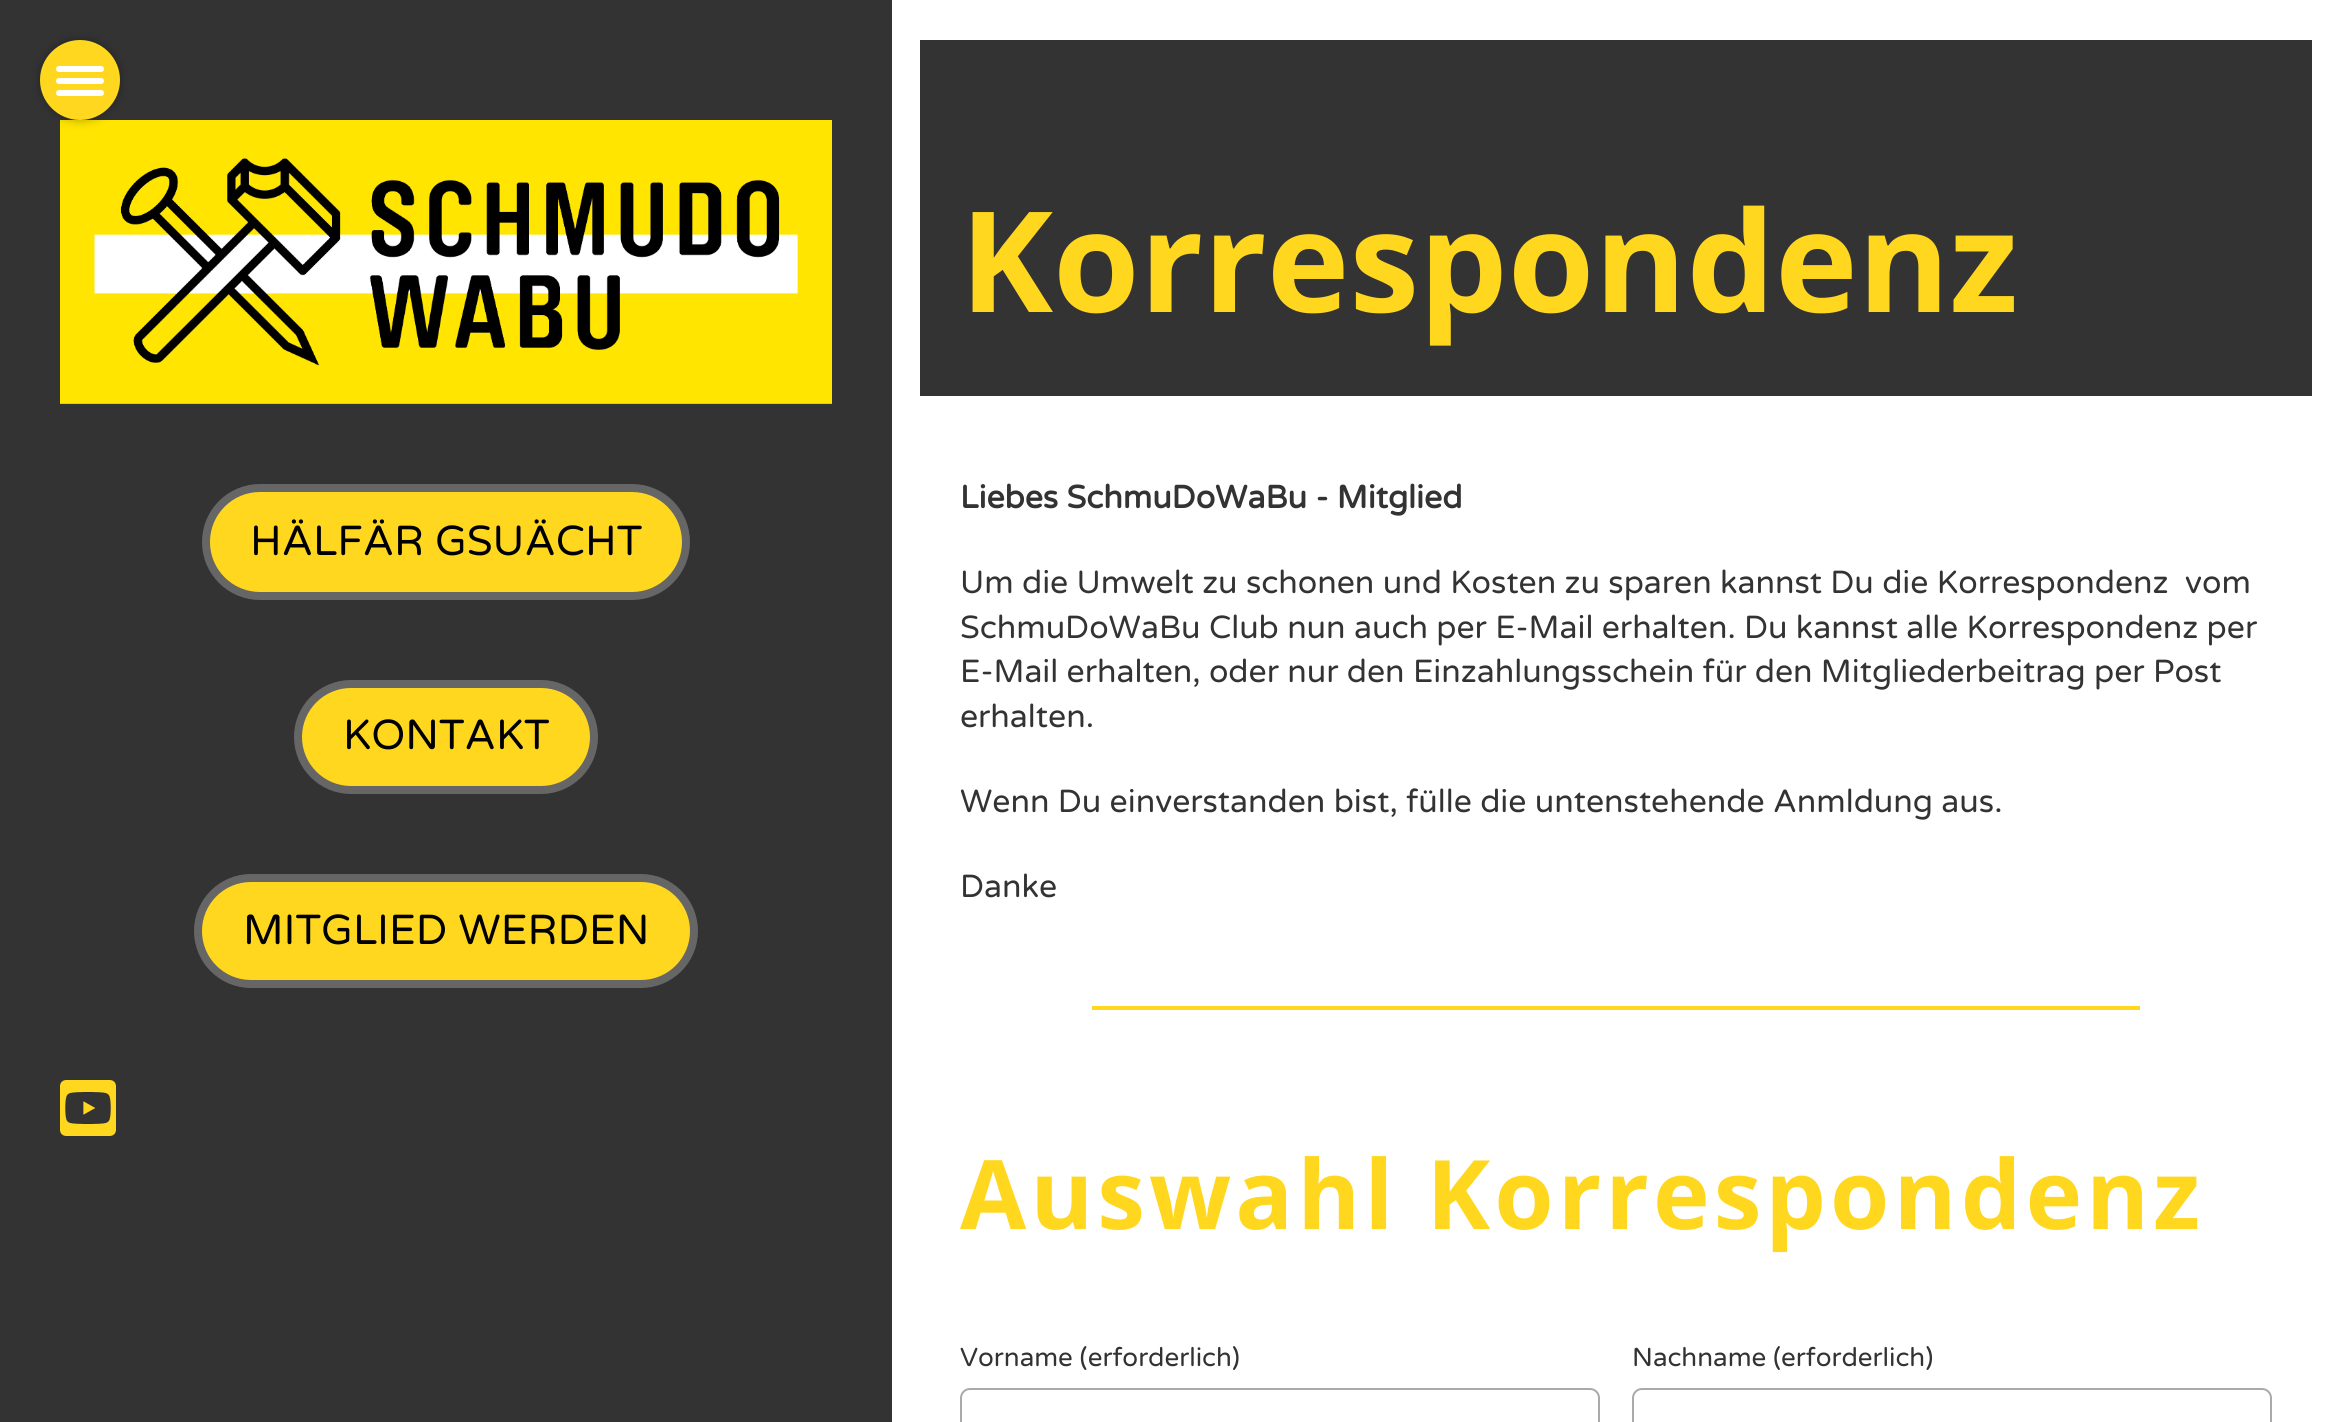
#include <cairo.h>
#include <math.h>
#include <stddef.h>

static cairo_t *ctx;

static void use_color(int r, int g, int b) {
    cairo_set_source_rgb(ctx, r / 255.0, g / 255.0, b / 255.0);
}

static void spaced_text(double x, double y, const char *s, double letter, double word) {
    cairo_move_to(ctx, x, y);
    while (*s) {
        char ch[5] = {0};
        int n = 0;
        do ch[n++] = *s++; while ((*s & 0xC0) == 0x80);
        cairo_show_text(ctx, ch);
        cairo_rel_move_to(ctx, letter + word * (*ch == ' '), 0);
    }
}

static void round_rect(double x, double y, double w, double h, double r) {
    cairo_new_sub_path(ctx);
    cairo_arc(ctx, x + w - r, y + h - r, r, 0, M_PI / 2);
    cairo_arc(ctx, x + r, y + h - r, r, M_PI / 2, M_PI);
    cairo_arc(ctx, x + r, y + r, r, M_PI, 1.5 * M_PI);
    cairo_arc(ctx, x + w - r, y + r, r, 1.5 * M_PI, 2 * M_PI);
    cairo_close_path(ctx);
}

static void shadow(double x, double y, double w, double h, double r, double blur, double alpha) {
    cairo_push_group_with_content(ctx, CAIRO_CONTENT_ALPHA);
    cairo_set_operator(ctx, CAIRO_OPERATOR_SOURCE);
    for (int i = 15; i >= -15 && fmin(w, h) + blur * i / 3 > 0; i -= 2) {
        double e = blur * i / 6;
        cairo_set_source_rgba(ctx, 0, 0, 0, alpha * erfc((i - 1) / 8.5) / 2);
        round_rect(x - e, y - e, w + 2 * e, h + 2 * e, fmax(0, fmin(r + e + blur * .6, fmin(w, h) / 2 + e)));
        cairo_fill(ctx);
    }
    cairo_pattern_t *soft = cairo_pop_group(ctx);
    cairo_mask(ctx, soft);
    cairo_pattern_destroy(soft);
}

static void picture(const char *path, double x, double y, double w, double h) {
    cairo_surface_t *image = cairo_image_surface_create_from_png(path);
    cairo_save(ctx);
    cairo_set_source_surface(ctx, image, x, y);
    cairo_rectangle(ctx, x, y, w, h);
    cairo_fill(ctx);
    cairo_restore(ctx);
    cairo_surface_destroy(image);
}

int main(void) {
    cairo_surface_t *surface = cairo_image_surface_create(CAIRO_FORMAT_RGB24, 2335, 1422);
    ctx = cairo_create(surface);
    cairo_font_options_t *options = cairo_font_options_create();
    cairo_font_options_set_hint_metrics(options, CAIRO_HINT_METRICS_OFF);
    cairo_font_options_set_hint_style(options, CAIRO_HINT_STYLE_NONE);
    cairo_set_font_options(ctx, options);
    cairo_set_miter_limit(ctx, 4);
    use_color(51, 51, 51);
    cairo_paint(ctx);
    picture("img1.png", 60, 120, 772, 284);
    use_color(0, 0, 0);
    shadow(40, 40, 80, 80, 40, 5, 0.3);
    use_color(255, 215, 31);
    cairo_arc(ctx, 80, 80, 40, 0, 2 * M_PI);
    cairo_fill(ctx);
    use_color(255, 255, 255);
    round_rect(56, 66, 48, 6, 3);
    cairo_fill(ctx);
    round_rect(56, 78, 48, 6, 3);
    cairo_fill(ctx);
    round_rect(56, 90, 48, 6, 3);
    cairo_fill(ctx);
    use_color(255, 215, 31);
    round_rect(206, 488, 480, 108, 54);
    cairo_fill_preserve(ctx);
    use_color(102, 102, 102);
    cairo_set_line_width(ctx, 8);
    cairo_stroke(ctx);
    cairo_select_font_face(ctx, "Varela Round", CAIRO_FONT_SLANT_NORMAL, CAIRO_FONT_WEIGHT_NORMAL);
    cairo_set_font_size(ctx, 42);
    use_color(0, 0, 0);
    cairo_move_to(ctx, 250, 555);
    cairo_show_text(ctx, "HÄLFÄR GSUÄCHT");
    use_color(255, 215, 31);
    round_rect(298, 684, 296, 106, 53);
    cairo_fill_preserve(ctx);
    use_color(102, 102, 102);
    cairo_stroke(ctx);
    use_color(0, 0, 0);
    cairo_move_to(ctx, 343, 749);
    cairo_show_text(ctx, "KONTAKT");
    use_color(255, 215, 31);
    round_rect(198, 878, 496, 106, 53);
    cairo_fill_preserve(ctx);
    use_color(102, 102, 102);
    cairo_stroke(ctx);
    use_color(0, 0, 0);
    cairo_move_to(ctx, 243, 944);
    cairo_show_text(ctx, "MITGLIED WERDEN");
    picture("img2.png", 60, 1080, 56, 56);
    use_color(255, 255, 255);
    cairo_rectangle(ctx, 892, 0, 1443, 1422);
    cairo_fill(ctx);
    use_color(51, 51, 51);
    cairo_rectangle(ctx, 920, 40, 1392, 356);
    cairo_fill(ctx);
    cairo_select_font_face(ctx, "Noto Sans", CAIRO_FONT_SLANT_NORMAL, CAIRO_FONT_WEIGHT_BOLD);
    cairo_set_font_size(ctx, 140);
    use_color(255, 215, 31);
    cairo_move_to(ctx, 960, 312);
    cairo_show_text(ctx, "Korrespondenz");
    cairo_select_font_face(ctx, "Varela Round", CAIRO_FONT_SLANT_NORMAL, CAIRO_FONT_WEIGHT_BOLD);
    cairo_set_font_size(ctx, 32);
    use_color(51, 51, 51);
    cairo_move_to(ctx, 960, 508);
    cairo_show_text(ctx, "Liebes SchmuDoWaBu - Mitglied");
    cairo_select_font_face(ctx, "Varela Round", CAIRO_FONT_SLANT_NORMAL, CAIRO_FONT_WEIGHT_NORMAL);
    cairo_move_to(ctx, 960, 593);
    cairo_show_text(ctx, "Um die Umwelt zu schonen und Kosten zu sparen kannst Du die Korrespondenz  vom");
    cairo_move_to(ctx, 960, 638);
    cairo_show_text(ctx, "SchmuDoWaBu Club nun auch per E-Mail erhalten. Du kannst alle Korrespondenz per");
    cairo_move_to(ctx, 960, 682);
    cairo_show_text(ctx, "E-Mail erhalten, oder nur den Einzahlungsschein für den Mitgliederbeitrag per Post");
    cairo_move_to(ctx, 960, 727);
    cairo_show_text(ctx, "erhalten.");
    cairo_move_to(ctx, 960, 812);
    cairo_show_text(ctx, "Wenn Du einverstanden bist, fülle die untenstehende Anmldung aus.");
    cairo_move_to(ctx, 960, 897);
    cairo_show_text(ctx, "Danke");
    use_color(255, 215, 31);
    cairo_rectangle(ctx, 1092, 1006, 1048, 4);
    cairo_fill(ctx);
    cairo_select_font_face(ctx, "Noto Sans", CAIRO_FONT_SLANT_NORMAL, CAIRO_FONT_WEIGHT_BOLD);
    cairo_set_font_size(ctx, 96);
    spaced_text(960, 1229, "Auswahl Korrespondenz", 4, 0);
    cairo_select_font_face(ctx, "Varela Round", CAIRO_FONT_SLANT_NORMAL, CAIRO_FONT_WEIGHT_NORMAL);
    cairo_set_font_size(ctx, 26);
    use_color(51, 51, 51);
    cairo_move_to(ctx, 960, 1366);
    cairo_show_text(ctx, "Vorname (erforderlich)");
    round_rect(961, 1389, 638, 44, 9);
    use_color(170, 170, 170);
    cairo_set_line_width(ctx, 2);
    cairo_stroke(ctx);
    use_color(51, 51, 51);
    cairo_move_to(ctx, 1632, 1366);
    cairo_show_text(ctx, "Nachname (erforderlich)");
    round_rect(1633, 1389, 638, 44, 9);
    use_color(170, 170, 170);
    cairo_stroke(ctx);
    cairo_surface_write_to_png(surface, "result.png");
    cairo_font_options_destroy(options);
    cairo_destroy(ctx);
    cairo_surface_destroy(surface);
    return 0;
}
